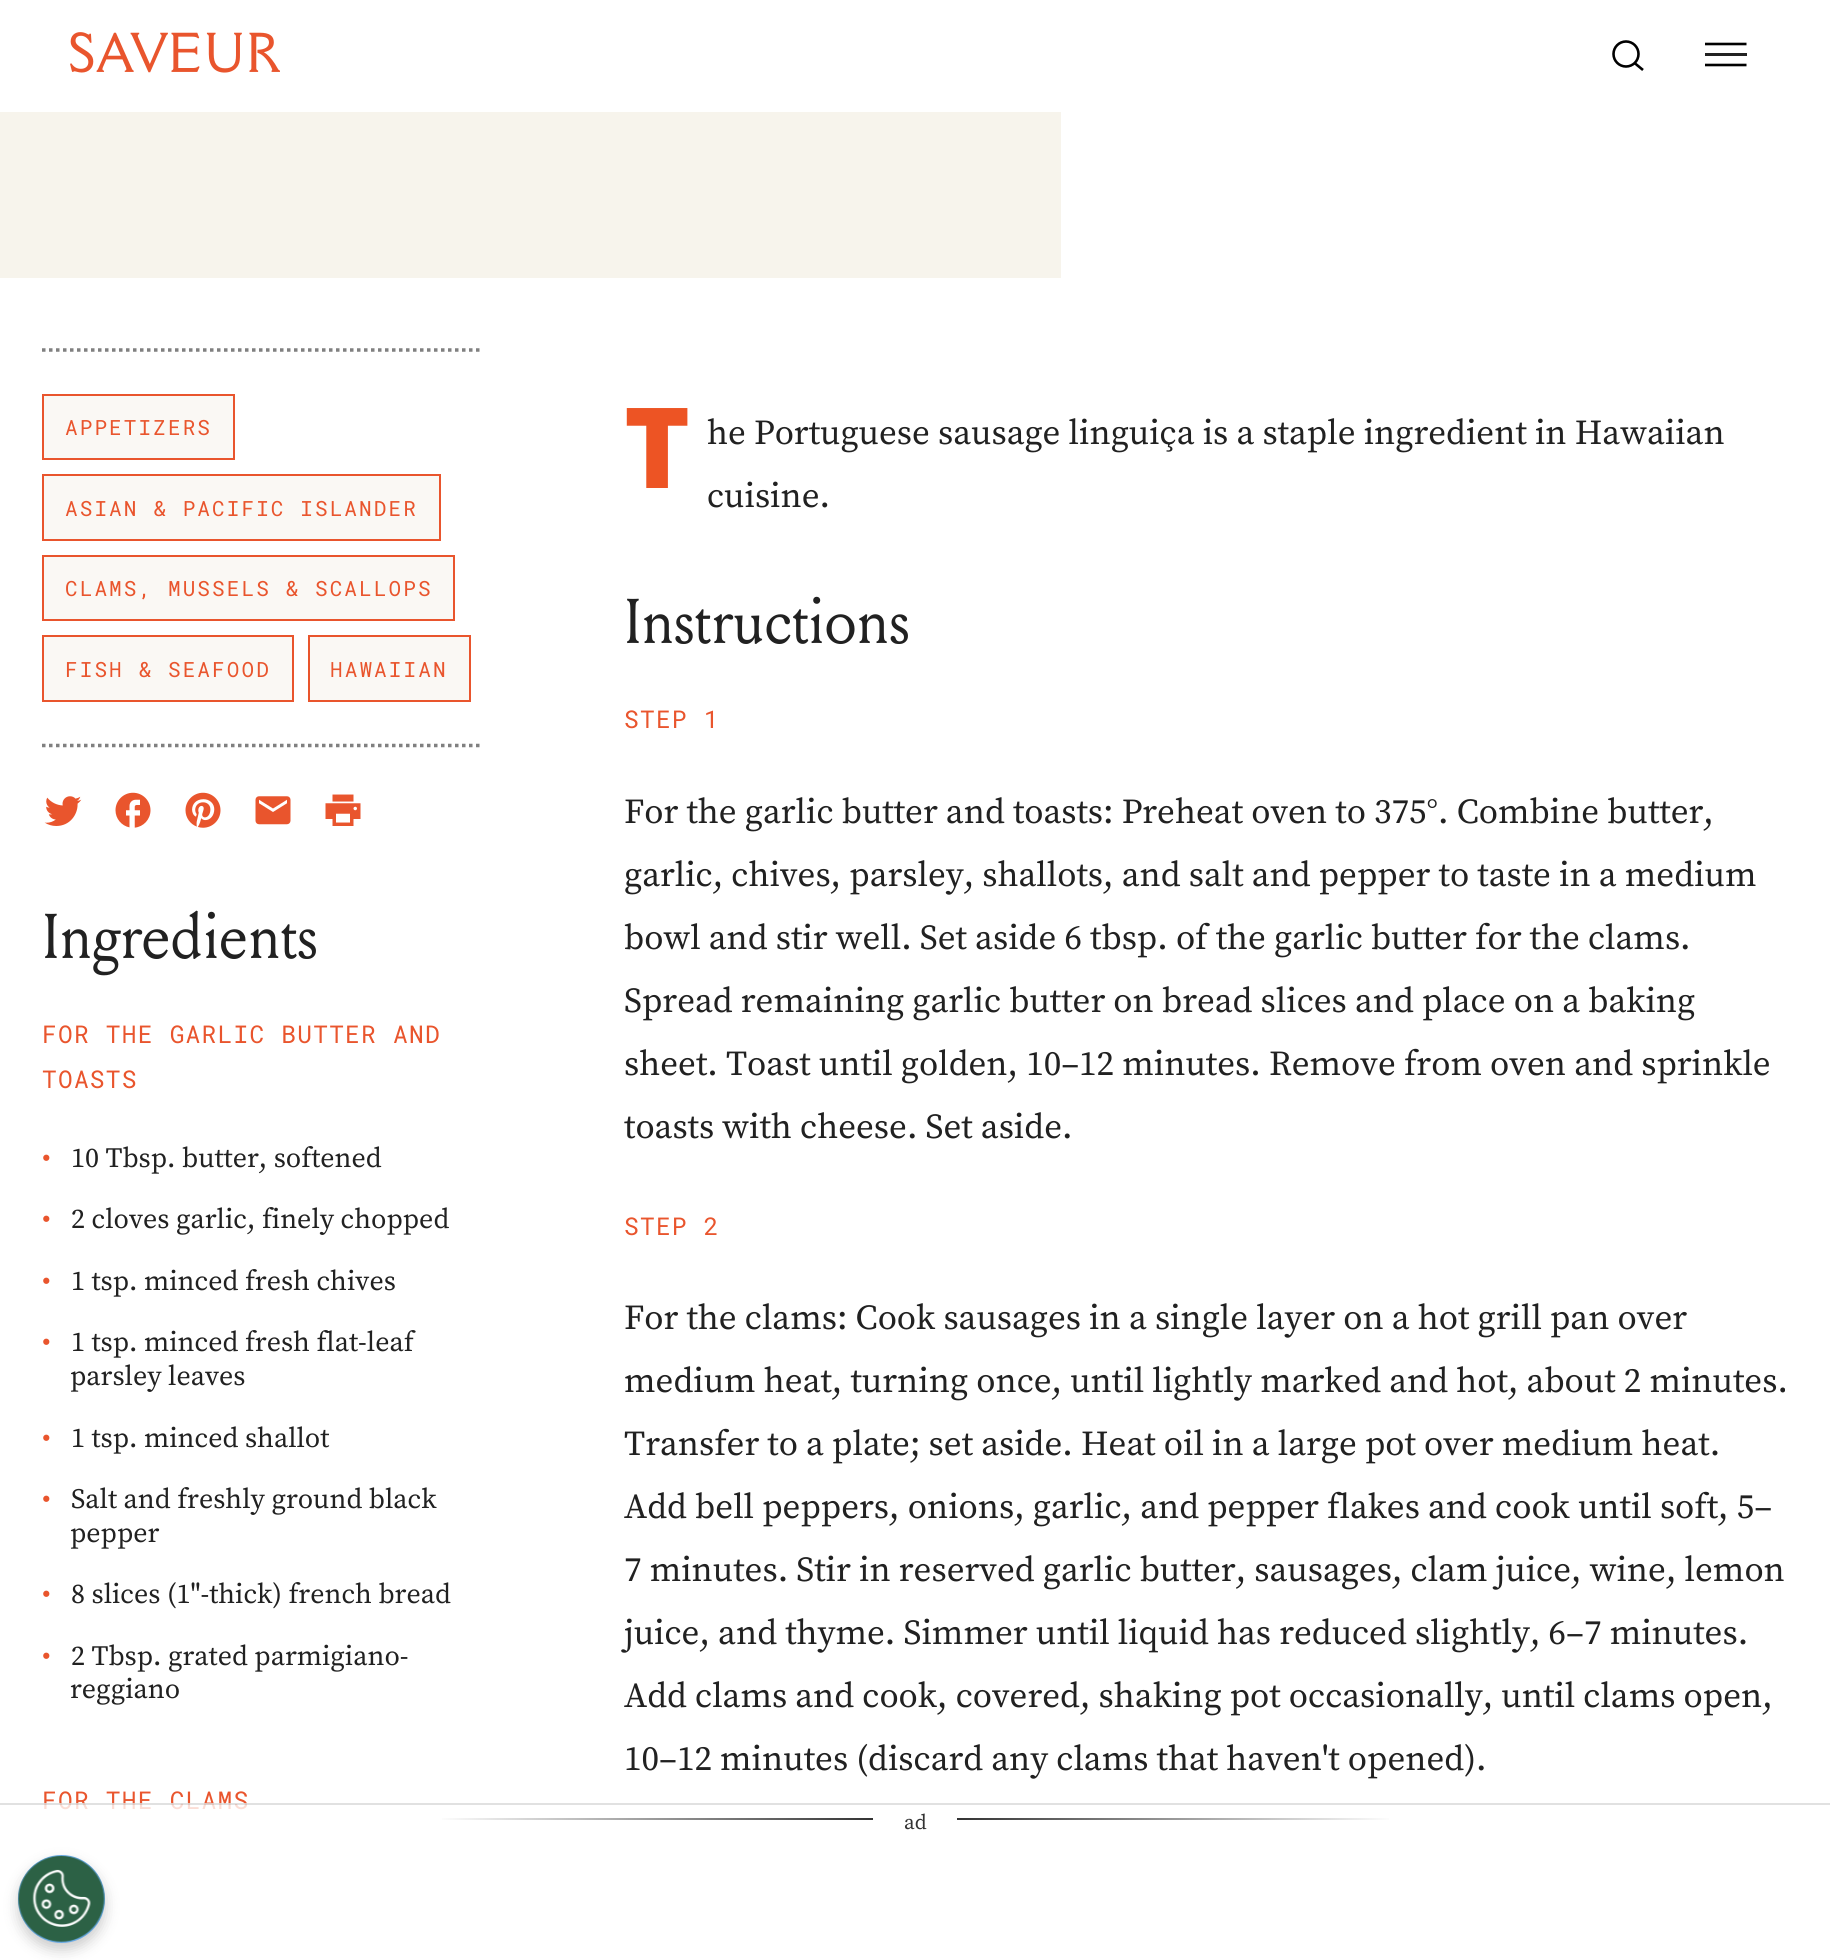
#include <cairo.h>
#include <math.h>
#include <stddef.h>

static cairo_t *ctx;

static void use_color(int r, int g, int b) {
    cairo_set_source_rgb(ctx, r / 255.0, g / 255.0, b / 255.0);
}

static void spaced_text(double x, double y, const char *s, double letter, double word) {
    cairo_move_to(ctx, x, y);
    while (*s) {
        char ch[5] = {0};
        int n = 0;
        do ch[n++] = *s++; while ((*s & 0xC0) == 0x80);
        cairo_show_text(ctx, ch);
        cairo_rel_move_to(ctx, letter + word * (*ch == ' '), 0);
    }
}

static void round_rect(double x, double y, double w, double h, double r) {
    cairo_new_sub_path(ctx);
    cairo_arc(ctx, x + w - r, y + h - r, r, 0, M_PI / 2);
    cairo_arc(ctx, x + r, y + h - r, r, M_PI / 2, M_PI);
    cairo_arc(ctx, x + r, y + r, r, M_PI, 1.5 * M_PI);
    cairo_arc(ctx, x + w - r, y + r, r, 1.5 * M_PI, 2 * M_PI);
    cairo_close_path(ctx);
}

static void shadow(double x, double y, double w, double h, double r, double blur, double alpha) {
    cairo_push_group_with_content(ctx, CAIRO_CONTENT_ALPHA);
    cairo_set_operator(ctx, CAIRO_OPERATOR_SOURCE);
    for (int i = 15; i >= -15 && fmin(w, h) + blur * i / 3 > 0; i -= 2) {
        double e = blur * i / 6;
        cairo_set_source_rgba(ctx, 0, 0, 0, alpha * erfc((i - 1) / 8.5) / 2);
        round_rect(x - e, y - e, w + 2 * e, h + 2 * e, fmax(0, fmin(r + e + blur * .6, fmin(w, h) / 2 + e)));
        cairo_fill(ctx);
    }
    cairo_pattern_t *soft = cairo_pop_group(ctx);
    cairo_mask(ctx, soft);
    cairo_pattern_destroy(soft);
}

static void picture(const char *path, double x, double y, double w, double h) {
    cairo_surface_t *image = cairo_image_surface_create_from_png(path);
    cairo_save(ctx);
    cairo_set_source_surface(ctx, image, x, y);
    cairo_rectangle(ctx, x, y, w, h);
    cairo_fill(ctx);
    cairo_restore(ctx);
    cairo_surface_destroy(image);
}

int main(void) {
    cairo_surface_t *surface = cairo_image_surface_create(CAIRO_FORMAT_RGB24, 1830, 1960);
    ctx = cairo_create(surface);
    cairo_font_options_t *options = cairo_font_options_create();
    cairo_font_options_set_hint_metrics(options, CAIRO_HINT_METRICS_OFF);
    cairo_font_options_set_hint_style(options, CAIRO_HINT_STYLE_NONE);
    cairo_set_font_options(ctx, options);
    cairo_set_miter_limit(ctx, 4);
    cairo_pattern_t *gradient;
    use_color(255, 255, 255);
    cairo_paint(ctx);
    picture("img1.png", 70, 32, 210, 41);
    cairo_arc(ctx, 1626, 54, 12.5, 0, 2 * M_PI);
    use_color(0, 0, 0);
    cairo_set_line_width(ctx, 2.6);
    cairo_stroke(ctx);
    cairo_new_path(ctx);
    cairo_move_to(ctx, 1634.5, 63);
    cairo_line_to(ctx, 1643, 70);
    cairo_stroke(ctx);
    cairo_save(ctx);
    cairo_rectangle(ctx, 1705, 35, 42, 42);
    cairo_clip(ctx);
    cairo_new_path(ctx);
    cairo_move_to(ctx, 1704.5, 44);
    cairo_line_to(ctx, 1746.5, 44);
    cairo_stroke(ctx);
    cairo_restore(ctx);
    use_color(34, 34, 34);
    cairo_rectangle(ctx, 1705, 53, 42, 3);
    cairo_fill(ctx);
    cairo_save(ctx);
    cairo_rectangle(ctx, 1705, 35, 42, 42);
    cairo_clip(ctx);
    cairo_new_path(ctx);
    cairo_move_to(ctx, 1704.5, 65);
    cairo_line_to(ctx, 1746.5, 65);
    use_color(0, 0, 0);
    cairo_stroke(ctx);
    cairo_restore(ctx);
    use_color(247, 244, 236);
    cairo_rectangle(ctx, 0, 112, 1061, 166);
    cairo_fill(ctx);
    cairo_new_path(ctx);
    cairo_move_to(ctx, 42, 350);
    cairo_line_to(ctx, 479.5, 350);
    use_color(128, 128, 128);
    cairo_set_line_width(ctx, 3.5);
    cairo_set_dash(ctx, (double[]){3.5, 3.5}, 2, 0);
    cairo_stroke(ctx);
    cairo_new_path(ctx);
    cairo_move_to(ctx, 42, 745.5);
    cairo_line_to(ctx, 479.5, 745.5);
    cairo_stroke(ctx);
    use_color(250, 248, 244);
    cairo_rectangle(ctx, 43, 395, 191, 64);
    cairo_fill_preserve(ctx);
    use_color(233, 85, 45);
    cairo_set_line_width(ctx, 2);
    cairo_set_dash(ctx, NULL, 0, 0);
    cairo_stroke(ctx);
    cairo_select_font_face(ctx, "Roboto Mono", CAIRO_FONT_SLANT_NORMAL, CAIRO_FONT_WEIGHT_NORMAL);
    cairo_set_font_size(ctx, 21);
    spaced_text(65, 435, "APPETIZERS", 2.1, 0);
    use_color(250, 248, 244);
    cairo_rectangle(ctx, 43, 475, 397, 65);
    cairo_fill_preserve(ctx);
    use_color(233, 85, 45);
    cairo_stroke(ctx);
    spaced_text(65, 516, "ASIAN & PACIFIC ISLANDER", 2.1, 0);
    use_color(250, 248, 244);
    cairo_rectangle(ctx, 43, 556, 411, 64);
    cairo_fill_preserve(ctx);
    use_color(233, 85, 45);
    cairo_stroke(ctx);
    spaced_text(65, 596, "CLAMS, MUSSELS & SCALLOPS", 2.1, 0);
    use_color(250, 248, 244);
    cairo_rectangle(ctx, 43, 636, 250, 65);
    cairo_fill_preserve(ctx);
    use_color(233, 85, 45);
    cairo_stroke(ctx);
    spaced_text(65, 677, "FISH & SEAFOOD", 2.1, 0);
    use_color(250, 248, 244);
    cairo_rectangle(ctx, 309, 636, 161, 65);
    cairo_fill_preserve(ctx);
    use_color(233, 85, 45);
    cairo_stroke(ctx);
    spaced_text(330, 677, "HAWAIIAN", 2.1, 0);
    picture("img2.png", 44, 796, 38, 30);
    picture("img3.png", 115, 792, 36, 36);
    picture("img4.png", 185, 792, 36, 36);
    picture("img5.png", 255, 796, 36, 29);
    picture("img6.png", 325, 794, 36, 32);
    cairo_select_font_face(ctx, "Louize", CAIRO_FONT_SLANT_NORMAL, CAIRO_FONT_WEIGHT_NORMAL);
    cairo_set_font_size(ctx, 63);
    use_color(33, 33, 33);
    spaced_text(42, 958, "Ingredients", -0.6, 0);
    cairo_select_font_face(ctx, "Roboto Mono", CAIRO_FONT_SLANT_NORMAL, CAIRO_FONT_WEIGHT_NORMAL);
    cairo_set_font_size(ctx, 24.5);
    use_color(233, 85, 45);
    spaced_text(42, 1043, "FOR THE GARLIC BUTTER AND", 1.25, 0);
    spaced_text(42, 1088, "TOASTS", 1.25, 0);
    cairo_select_font_face(ctx, "Source Serif Pro", CAIRO_FONT_SLANT_NORMAL, CAIRO_FONT_WEIGHT_NORMAL);
    cairo_set_font_size(ctx, 28);
    cairo_move_to(ctx, 42, 1167);
    cairo_show_text(ctx, "•");
    use_color(33, 33, 33);
    cairo_move_to(ctx, 71, 1167);
    cairo_show_text(ctx, "10 Tbsp. butter, softened");
    use_color(233, 85, 45);
    cairo_move_to(ctx, 42, 1228);
    cairo_show_text(ctx, "•");
    use_color(33, 33, 33);
    cairo_move_to(ctx, 71, 1228);
    cairo_show_text(ctx, "2 cloves garlic, finely chopped");
    use_color(233, 85, 45);
    cairo_move_to(ctx, 42, 1290);
    cairo_show_text(ctx, "•");
    use_color(33, 33, 33);
    cairo_move_to(ctx, 71, 1290);
    cairo_show_text(ctx, "1 tsp. minced fresh chives");
    use_color(233, 85, 45);
    cairo_move_to(ctx, 42, 1351);
    cairo_show_text(ctx, "•");
    use_color(33, 33, 33);
    cairo_move_to(ctx, 71, 1351);
    cairo_show_text(ctx, "1 tsp. minced fresh flat-leaf");
    cairo_move_to(ctx, 70, 1385);
    cairo_show_text(ctx, "parsley leaves");
    use_color(233, 85, 45);
    cairo_move_to(ctx, 42, 1447);
    cairo_show_text(ctx, "•");
    use_color(33, 33, 33);
    cairo_move_to(ctx, 71, 1447);
    cairo_show_text(ctx, "1 tsp. minced shallot");
    use_color(233, 85, 45);
    cairo_move_to(ctx, 42, 1508);
    cairo_show_text(ctx, "•");
    use_color(33, 33, 33);
    cairo_move_to(ctx, 71, 1508);
    cairo_show_text(ctx, "Salt and freshly ground black");
    cairo_move_to(ctx, 70, 1542);
    cairo_show_text(ctx, "pepper");
    use_color(233, 85, 45);
    cairo_move_to(ctx, 42, 1603);
    cairo_show_text(ctx, "•");
    use_color(33, 33, 33);
    cairo_move_to(ctx, 71, 1603);
    cairo_show_text(ctx, "8 slices (1\"-thick) french bread");
    use_color(233, 85, 45);
    cairo_move_to(ctx, 42, 1665);
    cairo_show_text(ctx, "•");
    use_color(33, 33, 33);
    cairo_move_to(ctx, 71, 1665);
    cairo_show_text(ctx, "2 Tbsp. grated parmigiano-");
    cairo_move_to(ctx, 70, 1698);
    cairo_show_text(ctx, "reggiano");
    cairo_select_font_face(ctx, "Roboto Mono", CAIRO_FONT_SLANT_NORMAL, CAIRO_FONT_WEIGHT_NORMAL);
    cairo_set_font_size(ctx, 24.5);
    use_color(233, 85, 45);
    spaced_text(42, 1809, "FOR THE CLAMS", 1.25, 0);
    cairo_select_font_face(ctx, "Noto Sans Black", CAIRO_FONT_SLANT_NORMAL, CAIRO_FONT_WEIGHT_NORMAL);
    cairo_set_font_size(ctx, 112);
    use_color(237, 84, 36);
    cairo_move_to(ctx, 624, 488);
    cairo_show_text(ctx, "T");
    cairo_select_font_face(ctx, "Source Serif Pro", CAIRO_FONT_SLANT_NORMAL, CAIRO_FONT_WEIGHT_NORMAL);
    cairo_set_font_size(ctx, 35);
    use_color(33, 33, 33);
    cairo_move_to(ctx, 707, 444);
    cairo_show_text(ctx, "he Portuguese sausage linguiça is a staple ingredient in Hawaiian");
    cairo_move_to(ctx, 707, 507);
    cairo_show_text(ctx, "cuisine.");
    cairo_select_font_face(ctx, "Louize", CAIRO_FONT_SLANT_NORMAL, CAIRO_FONT_WEIGHT_NORMAL);
    cairo_set_font_size(ctx, 63);
    spaced_text(624, 643, "Instructions", -0.6, 0);
    cairo_select_font_face(ctx, "Roboto Mono", CAIRO_FONT_SLANT_NORMAL, CAIRO_FONT_WEIGHT_NORMAL);
    cairo_set_font_size(ctx, 24.5);
    use_color(233, 85, 45);
    spaced_text(624, 728, "STEP 1", 1.25, 0);
    cairo_select_font_face(ctx, "Source Serif Pro", CAIRO_FONT_SLANT_NORMAL, CAIRO_FONT_WEIGHT_NORMAL);
    cairo_set_font_size(ctx, 35);
    use_color(33, 33, 33);
    cairo_move_to(ctx, 624, 823);
    cairo_show_text(ctx, "For the garlic butter and toasts: Preheat oven to 375°. Combine butter,");
    cairo_move_to(ctx, 624, 886);
    cairo_show_text(ctx, "garlic, chives, parsley, shallots, and salt and pepper to taste in a medium");
    cairo_move_to(ctx, 624, 949);
    cairo_show_text(ctx, "bowl and stir well. Set aside 6 tbsp. of the garlic butter for the clams.");
    cairo_move_to(ctx, 624, 1012);
    cairo_show_text(ctx, "Spread remaining garlic butter on bread slices and place on a baking");
    cairo_move_to(ctx, 624, 1075);
    cairo_show_text(ctx, "sheet. Toast until golden, 10–12 minutes. Remove from oven and sprinkle");
    cairo_move_to(ctx, 624, 1138);
    cairo_show_text(ctx, "toasts with cheese. Set aside.");
    cairo_select_font_face(ctx, "Roboto Mono", CAIRO_FONT_SLANT_NORMAL, CAIRO_FONT_WEIGHT_NORMAL);
    cairo_set_font_size(ctx, 24.5);
    use_color(233, 85, 45);
    spaced_text(624, 1235, "STEP 2", 1.25, 0);
    cairo_select_font_face(ctx, "Source Serif Pro", CAIRO_FONT_SLANT_NORMAL, CAIRO_FONT_WEIGHT_NORMAL);
    cairo_set_font_size(ctx, 35);
    use_color(33, 33, 33);
    cairo_move_to(ctx, 624, 1329);
    cairo_show_text(ctx, "For the clams: Cook sausages in a single layer on a hot grill pan over");
    cairo_move_to(ctx, 624, 1392);
    cairo_show_text(ctx, "medium heat, turning once, until lightly marked and hot, about 2 minutes.");
    cairo_move_to(ctx, 624, 1455);
    cairo_show_text(ctx, "Transfer to a plate; set aside. Heat oil in a large pot over medium heat.");
    cairo_move_to(ctx, 624, 1518);
    cairo_show_text(ctx, "Add bell peppers, onions, garlic, and pepper flakes and cook until soft, 5–");
    cairo_move_to(ctx, 624, 1581);
    cairo_show_text(ctx, "7 minutes. Stir in reserved garlic butter, sausages, clam juice, wine, lemon");
    cairo_move_to(ctx, 624, 1644);
    cairo_show_text(ctx, "juice, and thyme. Simmer until liquid has reduced slightly, 6–7 minutes.");
    cairo_move_to(ctx, 624, 1707);
    cairo_show_text(ctx, "Add clams and cook, covered, shaking pot occasionally, until clams open,");
    cairo_move_to(ctx, 624, 1770);
    cairo_show_text(ctx, "10–12 minutes (discard any clams that haven't opened).");
    cairo_set_source_rgba(ctx, 1, 1, 1, 0.8);
    cairo_rectangle(ctx, 44, 1803, 203, 7);
    cairo_fill(ctx);
    cairo_set_source_rgba(ctx, 0, 0, 0, 0.12);
    cairo_rectangle(ctx, 0, 1803, 1830, 2);
    cairo_fill(ctx);
    gradient = cairo_pattern_create_linear(0, 1819, 873, 1819);
    cairo_pattern_add_color_stop_rgba(gradient, 0.5, 1, 1, 1, 1);
    cairo_pattern_add_color_stop_rgba(gradient, 1, 0.2, 0.2, 0.2, 1);
    cairo_set_source(ctx, gradient);
    cairo_pattern_destroy(gradient);
    cairo_rectangle(ctx, 442, 1818, 431, 2);
    cairo_fill(ctx);
    cairo_set_font_size(ctx, 21);
    use_color(51, 51, 51);
    cairo_move_to(ctx, 904, 1829);
    cairo_show_text(ctx, "ad");
    gradient = cairo_pattern_create_linear(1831, 1819, 957, 1819);
    cairo_pattern_add_color_stop_rgba(gradient, 0.5, 1, 1, 1, 1);
    cairo_pattern_add_color_stop_rgba(gradient, 1, 0.2, 0.2, 0.2, 1);
    cairo_set_source(ctx, gradient);
    cairo_pattern_destroy(gradient);
    cairo_rectangle(ctx, 957, 1818, 432, 2);
    cairo_fill(ctx);
    use_color(0, 0, 0);
    shadow(18, 1862, 87, 88, 43.5, 7, 0.2);
    use_color(106, 170, 228);
    round_rect(18, 1855, 87, 88, 43.5);
    cairo_fill(ctx);
    picture("img7.png", 17, 1855, 88, 87);
    cairo_surface_write_to_png(surface, "result.png");
    cairo_font_options_destroy(options);
    cairo_destroy(ctx);
    cairo_surface_destroy(surface);
    return 0;
}
